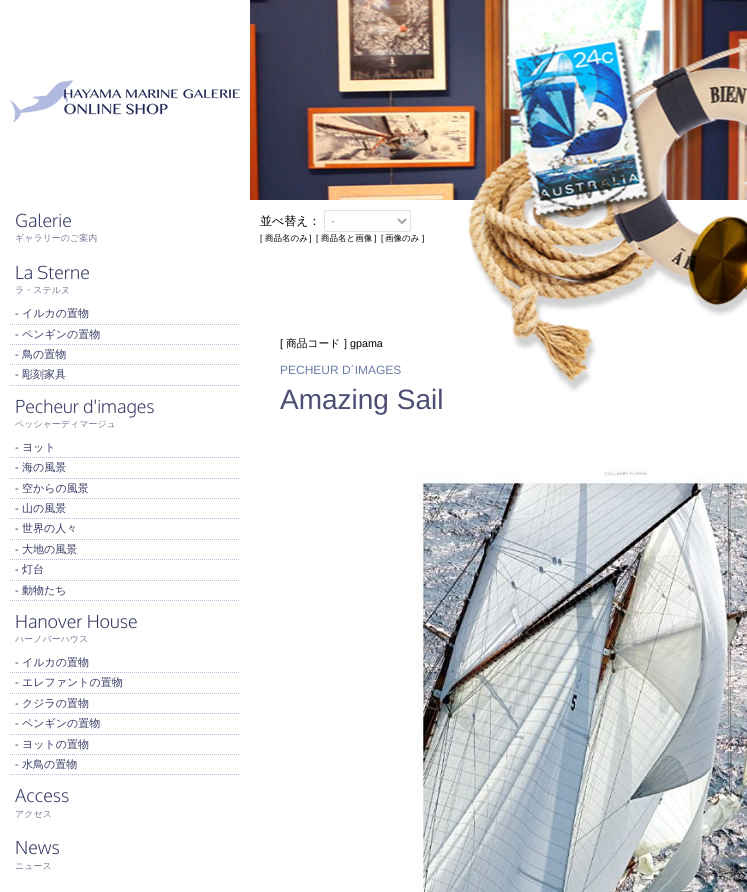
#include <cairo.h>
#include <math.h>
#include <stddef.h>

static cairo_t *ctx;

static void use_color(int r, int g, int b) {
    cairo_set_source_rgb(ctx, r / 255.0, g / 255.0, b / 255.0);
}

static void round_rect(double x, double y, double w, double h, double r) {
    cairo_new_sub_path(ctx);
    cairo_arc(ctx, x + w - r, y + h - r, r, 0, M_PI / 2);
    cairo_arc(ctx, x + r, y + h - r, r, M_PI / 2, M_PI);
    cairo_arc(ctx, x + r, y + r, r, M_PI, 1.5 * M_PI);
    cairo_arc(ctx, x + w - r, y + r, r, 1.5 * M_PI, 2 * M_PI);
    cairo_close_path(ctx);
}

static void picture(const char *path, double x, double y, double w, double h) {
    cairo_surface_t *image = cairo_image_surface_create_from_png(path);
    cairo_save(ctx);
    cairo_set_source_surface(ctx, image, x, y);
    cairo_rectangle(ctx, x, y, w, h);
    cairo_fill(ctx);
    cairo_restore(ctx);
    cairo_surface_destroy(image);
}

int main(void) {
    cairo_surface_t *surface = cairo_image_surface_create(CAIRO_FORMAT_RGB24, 747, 892);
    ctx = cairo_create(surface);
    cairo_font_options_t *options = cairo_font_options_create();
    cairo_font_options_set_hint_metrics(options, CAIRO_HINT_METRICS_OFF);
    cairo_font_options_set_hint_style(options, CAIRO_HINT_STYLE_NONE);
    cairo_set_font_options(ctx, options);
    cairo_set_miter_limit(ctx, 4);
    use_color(255, 255, 255);
    cairo_paint(ctx);
    picture("img1.png", 250, 0, 497, 392);
    picture("img2.png", 10, 80, 230, 42);
    cairo_select_font_face(ctx, "Oxygen Light", CAIRO_FONT_SLANT_NORMAL, CAIRO_FONT_WEIGHT_NORMAL);
    cairo_set_font_size(ctx, 18);
    use_color(55, 58, 100);
    cairo_move_to(ctx, 15, 227);
    cairo_show_text(ctx, "Galerie");
    cairo_select_font_face(ctx, "WenQuanYi Zen Hei Medium", CAIRO_FONT_SLANT_NORMAL, CAIRO_FONT_WEIGHT_NORMAL);
    cairo_set_font_size(ctx, 9);
    use_color(118, 120, 149);
    cairo_move_to(ctx, 15, 241);
    cairo_show_text(ctx, "ギャラリーのご案内");
    cairo_select_font_face(ctx, "Oxygen Light", CAIRO_FONT_SLANT_NORMAL, CAIRO_FONT_WEIGHT_NORMAL);
    cairo_set_font_size(ctx, 18);
    use_color(55, 58, 100);
    cairo_move_to(ctx, 15, 279);
    cairo_show_text(ctx, "La Sterne");
    cairo_select_font_face(ctx, "WenQuanYi Zen Hei Medium", CAIRO_FONT_SLANT_NORMAL, CAIRO_FONT_WEIGHT_NORMAL);
    cairo_set_font_size(ctx, 9);
    use_color(118, 120, 149);
    cairo_move_to(ctx, 15, 293);
    cairo_show_text(ctx, "ラ・ステルヌ");
    cairo_new_path(ctx);
    cairo_move_to(ctx, 10, 324.5);
    cairo_line_to(ctx, 240, 324.5);
    use_color(179, 185, 222);
    cairo_set_line_width(ctx, 1);
    cairo_set_dash(ctx, (double[]){1, 1}, 2, 0);
    cairo_stroke(ctx);
    cairo_select_font_face(ctx, "Liberation Sans", CAIRO_FONT_SLANT_NORMAL, CAIRO_FONT_WEIGHT_NORMAL);
    cairo_set_font_size(ctx, 11);
    use_color(55, 58, 100);
    cairo_move_to(ctx, 15, 317);
    cairo_show_text(ctx, "-");
    cairo_select_font_face(ctx, "WenQuanYi Zen Hei Medium", CAIRO_FONT_SLANT_NORMAL, CAIRO_FONT_WEIGHT_NORMAL);
    cairo_move_to(ctx, 22, 317);
    cairo_show_text(ctx, "イルカの置物");
    cairo_new_path(ctx);
    cairo_move_to(ctx, 10, 344.5);
    cairo_line_to(ctx, 240, 344.5);
    use_color(179, 185, 222);
    cairo_stroke(ctx);
    cairo_select_font_face(ctx, "Liberation Sans", CAIRO_FONT_SLANT_NORMAL, CAIRO_FONT_WEIGHT_NORMAL);
    use_color(55, 58, 100);
    cairo_move_to(ctx, 15, 338);
    cairo_show_text(ctx, "-");
    cairo_select_font_face(ctx, "WenQuanYi Zen Hei Medium", CAIRO_FONT_SLANT_NORMAL, CAIRO_FONT_WEIGHT_NORMAL);
    cairo_move_to(ctx, 22, 338);
    cairo_show_text(ctx, "ペンギンの置物");
    cairo_new_path(ctx);
    cairo_move_to(ctx, 10, 364.5);
    cairo_line_to(ctx, 240, 364.5);
    use_color(179, 185, 222);
    cairo_stroke(ctx);
    cairo_select_font_face(ctx, "Liberation Sans", CAIRO_FONT_SLANT_NORMAL, CAIRO_FONT_WEIGHT_NORMAL);
    use_color(55, 58, 100);
    cairo_move_to(ctx, 15, 358);
    cairo_show_text(ctx, "-");
    cairo_select_font_face(ctx, "WenQuanYi Zen Hei Medium", CAIRO_FONT_SLANT_NORMAL, CAIRO_FONT_WEIGHT_NORMAL);
    cairo_move_to(ctx, 22, 358);
    cairo_show_text(ctx, "鳥の置物");
    cairo_new_path(ctx);
    cairo_move_to(ctx, 10, 385.5);
    cairo_line_to(ctx, 240, 385.5);
    use_color(179, 185, 222);
    cairo_stroke(ctx);
    cairo_select_font_face(ctx, "Liberation Sans", CAIRO_FONT_SLANT_NORMAL, CAIRO_FONT_WEIGHT_NORMAL);
    use_color(55, 58, 100);
    cairo_move_to(ctx, 15, 378);
    cairo_show_text(ctx, "-");
    cairo_select_font_face(ctx, "WenQuanYi Zen Hei Medium", CAIRO_FONT_SLANT_NORMAL, CAIRO_FONT_WEIGHT_NORMAL);
    cairo_move_to(ctx, 22, 378);
    cairo_show_text(ctx, "彫刻家具");
    cairo_select_font_face(ctx, "Oxygen Light", CAIRO_FONT_SLANT_NORMAL, CAIRO_FONT_WEIGHT_NORMAL);
    cairo_set_font_size(ctx, 18);
    cairo_move_to(ctx, 15, 413);
    cairo_show_text(ctx, "Pecheur d'images");
    cairo_select_font_face(ctx, "WenQuanYi Zen Hei Medium", CAIRO_FONT_SLANT_NORMAL, CAIRO_FONT_WEIGHT_NORMAL);
    cairo_set_font_size(ctx, 9);
    use_color(118, 120, 149);
    cairo_move_to(ctx, 15, 427);
    cairo_show_text(ctx, "ペッシャーディマージュ");
    cairo_new_path(ctx);
    cairo_move_to(ctx, 10, 457.5);
    cairo_line_to(ctx, 240, 457.5);
    use_color(179, 185, 222);
    cairo_stroke(ctx);
    cairo_select_font_face(ctx, "Liberation Sans", CAIRO_FONT_SLANT_NORMAL, CAIRO_FONT_WEIGHT_NORMAL);
    cairo_set_font_size(ctx, 11);
    use_color(55, 58, 100);
    cairo_move_to(ctx, 15, 451);
    cairo_show_text(ctx, "-");
    cairo_select_font_face(ctx, "WenQuanYi Zen Hei Medium", CAIRO_FONT_SLANT_NORMAL, CAIRO_FONT_WEIGHT_NORMAL);
    cairo_move_to(ctx, 22, 451);
    cairo_show_text(ctx, "ヨット");
    cairo_new_path(ctx);
    cairo_move_to(ctx, 10, 478.5);
    cairo_line_to(ctx, 240, 478.5);
    use_color(179, 185, 222);
    cairo_stroke(ctx);
    cairo_select_font_face(ctx, "Liberation Sans", CAIRO_FONT_SLANT_NORMAL, CAIRO_FONT_WEIGHT_NORMAL);
    use_color(55, 58, 100);
    cairo_move_to(ctx, 15, 471);
    cairo_show_text(ctx, "-");
    cairo_select_font_face(ctx, "WenQuanYi Zen Hei Medium", CAIRO_FONT_SLANT_NORMAL, CAIRO_FONT_WEIGHT_NORMAL);
    cairo_move_to(ctx, 22, 471);
    cairo_show_text(ctx, "海の風景");
    cairo_new_path(ctx);
    cairo_move_to(ctx, 10, 498.5);
    cairo_line_to(ctx, 240, 498.5);
    use_color(179, 185, 222);
    cairo_stroke(ctx);
    cairo_select_font_face(ctx, "Liberation Sans", CAIRO_FONT_SLANT_NORMAL, CAIRO_FONT_WEIGHT_NORMAL);
    use_color(55, 58, 100);
    cairo_move_to(ctx, 15, 492);
    cairo_show_text(ctx, "-");
    cairo_select_font_face(ctx, "WenQuanYi Zen Hei Medium", CAIRO_FONT_SLANT_NORMAL, CAIRO_FONT_WEIGHT_NORMAL);
    cairo_move_to(ctx, 22, 492);
    cairo_show_text(ctx, "空からの風景");
    cairo_new_path(ctx);
    cairo_move_to(ctx, 10, 518.5);
    cairo_line_to(ctx, 240, 518.5);
    use_color(179, 185, 222);
    cairo_stroke(ctx);
    cairo_select_font_face(ctx, "Liberation Sans", CAIRO_FONT_SLANT_NORMAL, CAIRO_FONT_WEIGHT_NORMAL);
    use_color(55, 58, 100);
    cairo_move_to(ctx, 15, 512);
    cairo_show_text(ctx, "-");
    cairo_select_font_face(ctx, "WenQuanYi Zen Hei Medium", CAIRO_FONT_SLANT_NORMAL, CAIRO_FONT_WEIGHT_NORMAL);
    cairo_move_to(ctx, 22, 512);
    cairo_show_text(ctx, "山の風景");
    cairo_new_path(ctx);
    cairo_move_to(ctx, 10, 539.5);
    cairo_line_to(ctx, 240, 539.5);
    use_color(179, 185, 222);
    cairo_stroke(ctx);
    cairo_select_font_face(ctx, "Liberation Sans", CAIRO_FONT_SLANT_NORMAL, CAIRO_FONT_WEIGHT_NORMAL);
    use_color(55, 58, 100);
    cairo_move_to(ctx, 15, 532);
    cairo_show_text(ctx, "-");
    cairo_select_font_face(ctx, "WenQuanYi Zen Hei Medium", CAIRO_FONT_SLANT_NORMAL, CAIRO_FONT_WEIGHT_NORMAL);
    cairo_move_to(ctx, 22, 532);
    cairo_show_text(ctx, "世界の人々");
    cairo_new_path(ctx);
    cairo_move_to(ctx, 10, 559.5);
    cairo_line_to(ctx, 240, 559.5);
    use_color(179, 185, 222);
    cairo_stroke(ctx);
    cairo_select_font_face(ctx, "Liberation Sans", CAIRO_FONT_SLANT_NORMAL, CAIRO_FONT_WEIGHT_NORMAL);
    use_color(55, 58, 100);
    cairo_move_to(ctx, 15, 553);
    cairo_show_text(ctx, "-");
    cairo_select_font_face(ctx, "WenQuanYi Zen Hei Medium", CAIRO_FONT_SLANT_NORMAL, CAIRO_FONT_WEIGHT_NORMAL);
    cairo_move_to(ctx, 22, 553);
    cairo_show_text(ctx, "大地の風景");
    cairo_new_path(ctx);
    cairo_move_to(ctx, 10, 580.5);
    cairo_line_to(ctx, 240, 580.5);
    use_color(179, 185, 222);
    cairo_stroke(ctx);
    cairo_select_font_face(ctx, "Liberation Sans", CAIRO_FONT_SLANT_NORMAL, CAIRO_FONT_WEIGHT_NORMAL);
    use_color(55, 58, 100);
    cairo_move_to(ctx, 15, 573);
    cairo_show_text(ctx, "-");
    cairo_select_font_face(ctx, "WenQuanYi Zen Hei Medium", CAIRO_FONT_SLANT_NORMAL, CAIRO_FONT_WEIGHT_NORMAL);
    cairo_move_to(ctx, 22, 573);
    cairo_show_text(ctx, "灯台");
    cairo_new_path(ctx);
    cairo_move_to(ctx, 10, 600.5);
    cairo_line_to(ctx, 240, 600.5);
    use_color(179, 185, 222);
    cairo_stroke(ctx);
    cairo_select_font_face(ctx, "Liberation Sans", CAIRO_FONT_SLANT_NORMAL, CAIRO_FONT_WEIGHT_NORMAL);
    use_color(55, 58, 100);
    cairo_move_to(ctx, 15, 594);
    cairo_show_text(ctx, "-");
    cairo_select_font_face(ctx, "WenQuanYi Zen Hei Medium", CAIRO_FONT_SLANT_NORMAL, CAIRO_FONT_WEIGHT_NORMAL);
    cairo_move_to(ctx, 22, 594);
    cairo_show_text(ctx, "動物たち");
    cairo_select_font_face(ctx, "Oxygen Light", CAIRO_FONT_SLANT_NORMAL, CAIRO_FONT_WEIGHT_NORMAL);
    cairo_set_font_size(ctx, 18);
    cairo_move_to(ctx, 15, 628);
    cairo_show_text(ctx, "Hanover House");
    cairo_select_font_face(ctx, "WenQuanYi Zen Hei Medium", CAIRO_FONT_SLANT_NORMAL, CAIRO_FONT_WEIGHT_NORMAL);
    cairo_set_font_size(ctx, 9);
    use_color(118, 120, 149);
    cairo_move_to(ctx, 15, 642);
    cairo_show_text(ctx, "ハーノバーハウス");
    cairo_new_path(ctx);
    cairo_move_to(ctx, 10, 672.5);
    cairo_line_to(ctx, 240, 672.5);
    use_color(179, 185, 222);
    cairo_stroke(ctx);
    cairo_select_font_face(ctx, "Liberation Sans", CAIRO_FONT_SLANT_NORMAL, CAIRO_FONT_WEIGHT_NORMAL);
    cairo_set_font_size(ctx, 11);
    use_color(55, 58, 100);
    cairo_move_to(ctx, 15, 666);
    cairo_show_text(ctx, "-");
    cairo_select_font_face(ctx, "WenQuanYi Zen Hei Medium", CAIRO_FONT_SLANT_NORMAL, CAIRO_FONT_WEIGHT_NORMAL);
    cairo_move_to(ctx, 22, 666);
    cairo_show_text(ctx, "イルカの置物");
    cairo_new_path(ctx);
    cairo_move_to(ctx, 10, 693.5);
    cairo_line_to(ctx, 240, 693.5);
    use_color(179, 185, 222);
    cairo_stroke(ctx);
    cairo_select_font_face(ctx, "Liberation Sans", CAIRO_FONT_SLANT_NORMAL, CAIRO_FONT_WEIGHT_NORMAL);
    use_color(55, 58, 100);
    cairo_move_to(ctx, 15, 686);
    cairo_show_text(ctx, "-");
    cairo_select_font_face(ctx, "WenQuanYi Zen Hei Medium", CAIRO_FONT_SLANT_NORMAL, CAIRO_FONT_WEIGHT_NORMAL);
    cairo_move_to(ctx, 22, 686);
    cairo_show_text(ctx, "エレファントの置物");
    cairo_new_path(ctx);
    cairo_move_to(ctx, 10, 713.5);
    cairo_line_to(ctx, 240, 713.5);
    use_color(179, 185, 222);
    cairo_stroke(ctx);
    cairo_select_font_face(ctx, "Liberation Sans", CAIRO_FONT_SLANT_NORMAL, CAIRO_FONT_WEIGHT_NORMAL);
    use_color(55, 58, 100);
    cairo_move_to(ctx, 15, 707);
    cairo_show_text(ctx, "-");
    cairo_select_font_face(ctx, "WenQuanYi Zen Hei Medium", CAIRO_FONT_SLANT_NORMAL, CAIRO_FONT_WEIGHT_NORMAL);
    cairo_move_to(ctx, 22, 707);
    cairo_show_text(ctx, "クジラの置物");
    cairo_new_path(ctx);
    cairo_move_to(ctx, 10, 734.5);
    cairo_line_to(ctx, 240, 734.5);
    use_color(179, 185, 222);
    cairo_stroke(ctx);
    cairo_select_font_face(ctx, "Liberation Sans", CAIRO_FONT_SLANT_NORMAL, CAIRO_FONT_WEIGHT_NORMAL);
    use_color(55, 58, 100);
    cairo_move_to(ctx, 15, 727);
    cairo_show_text(ctx, "-");
    cairo_select_font_face(ctx, "WenQuanYi Zen Hei Medium", CAIRO_FONT_SLANT_NORMAL, CAIRO_FONT_WEIGHT_NORMAL);
    cairo_move_to(ctx, 22, 727);
    cairo_show_text(ctx, "ペンギンの置物");
    cairo_new_path(ctx);
    cairo_move_to(ctx, 10, 754.5);
    cairo_line_to(ctx, 240, 754.5);
    use_color(179, 185, 222);
    cairo_stroke(ctx);
    cairo_select_font_face(ctx, "Liberation Sans", CAIRO_FONT_SLANT_NORMAL, CAIRO_FONT_WEIGHT_NORMAL);
    use_color(55, 58, 100);
    cairo_move_to(ctx, 15, 748);
    cairo_show_text(ctx, "-");
    cairo_select_font_face(ctx, "WenQuanYi Zen Hei Medium", CAIRO_FONT_SLANT_NORMAL, CAIRO_FONT_WEIGHT_NORMAL);
    cairo_move_to(ctx, 22, 748);
    cairo_show_text(ctx, "ヨットの置物");
    cairo_new_path(ctx);
    cairo_move_to(ctx, 10, 774.5);
    cairo_line_to(ctx, 240, 774.5);
    use_color(179, 185, 222);
    cairo_stroke(ctx);
    cairo_select_font_face(ctx, "Liberation Sans", CAIRO_FONT_SLANT_NORMAL, CAIRO_FONT_WEIGHT_NORMAL);
    use_color(55, 58, 100);
    cairo_move_to(ctx, 15, 768);
    cairo_show_text(ctx, "-");
    cairo_select_font_face(ctx, "WenQuanYi Zen Hei Medium", CAIRO_FONT_SLANT_NORMAL, CAIRO_FONT_WEIGHT_NORMAL);
    cairo_move_to(ctx, 22, 768);
    cairo_show_text(ctx, "水鳥の置物");
    cairo_select_font_face(ctx, "Oxygen Light", CAIRO_FONT_SLANT_NORMAL, CAIRO_FONT_WEIGHT_NORMAL);
    cairo_set_font_size(ctx, 18);
    cairo_move_to(ctx, 15, 802);
    cairo_show_text(ctx, "Access");
    cairo_select_font_face(ctx, "WenQuanYi Zen Hei Medium", CAIRO_FONT_SLANT_NORMAL, CAIRO_FONT_WEIGHT_NORMAL);
    cairo_set_font_size(ctx, 9);
    use_color(118, 120, 149);
    cairo_move_to(ctx, 15, 817);
    cairo_show_text(ctx, "アクセス");
    cairo_select_font_face(ctx, "Oxygen Light", CAIRO_FONT_SLANT_NORMAL, CAIRO_FONT_WEIGHT_NORMAL);
    cairo_set_font_size(ctx, 18);
    use_color(55, 58, 100);
    cairo_move_to(ctx, 15, 854);
    cairo_show_text(ctx, "News");
    cairo_select_font_face(ctx, "WenQuanYi Zen Hei Medium", CAIRO_FONT_SLANT_NORMAL, CAIRO_FONT_WEIGHT_NORMAL);
    cairo_set_font_size(ctx, 9);
    use_color(118, 120, 149);
    cairo_move_to(ctx, 15, 869);
    cairo_show_text(ctx, "ニュース");
    cairo_select_font_face(ctx, "Liberation Sans", CAIRO_FONT_SLANT_NORMAL, CAIRO_FONT_WEIGHT_NORMAL);
    cairo_set_font_size(ctx, 10.75);
    use_color(0, 0, 0);
    cairo_move_to(ctx, 280, 347);
    cairo_show_text(ctx, "[");
    cairo_select_font_face(ctx, "WenQuanYi Zen Hei Medium", CAIRO_FONT_SLANT_NORMAL, CAIRO_FONT_WEIGHT_NORMAL);
    cairo_move_to(ctx, 286, 347);
    cairo_show_text(ctx, "商品コード");
    cairo_select_font_face(ctx, "Liberation Sans", CAIRO_FONT_SLANT_NORMAL, CAIRO_FONT_WEIGHT_NORMAL);
    cairo_move_to(ctx, 344, 347);
    cairo_show_text(ctx, "] gpama");
    cairo_set_font_size(ctx, 12);
    use_color(108, 124, 169);
    cairo_move_to(ctx, 280, 374);
    cairo_show_text(ctx, "PECHEUR D´IMAGES");
    cairo_set_font_size(ctx, 28);
    use_color(76, 78, 115);
    cairo_move_to(ctx, 280, 409);
    cairo_show_text(ctx, "Amazing Sail");
    picture("img3.png", 417, 469, 330, 423);
    cairo_select_font_face(ctx, "WenQuanYi Zen Hei Medium", CAIRO_FONT_SLANT_NORMAL, CAIRO_FONT_WEIGHT_NORMAL);
    cairo_set_font_size(ctx, 12);
    use_color(0, 0, 0);
    cairo_move_to(ctx, 260, 225);
    cairo_show_text(ctx, "並べ替え：");
    round_rect(324.5, 210.5, 86, 21, 1.5);
    use_color(226, 226, 226);
    cairo_set_dash(ctx, NULL, 0, 0);
    cairo_stroke(ctx);
    cairo_new_path(ctx);
    cairo_move_to(ctx, 398, 219);
    cairo_line_to(ctx, 402, 223);
    cairo_line_to(ctx, 406, 219);
    use_color(166, 166, 166);
    cairo_set_line_width(ctx, 2);
    cairo_stroke(ctx);
    cairo_select_font_face(ctx, "Liberation Sans", CAIRO_FONT_SLANT_NORMAL, CAIRO_FONT_WEIGHT_NORMAL);
    cairo_move_to(ctx, 331, 225);
    cairo_show_text(ctx, "-");
    cairo_set_font_size(ctx, 8.5);
    use_color(0, 0, 0);
    cairo_move_to(ctx, 260, 241);
    cairo_show_text(ctx, "[");
    cairo_select_font_face(ctx, "WenQuanYi Zen Hei Medium", CAIRO_FONT_SLANT_NORMAL, CAIRO_FONT_WEIGHT_NORMAL);
    cairo_move_to(ctx, 265, 241);
    cairo_show_text(ctx, "商品名のみ");
    cairo_select_font_face(ctx, "Liberation Sans", CAIRO_FONT_SLANT_NORMAL, CAIRO_FONT_WEIGHT_NORMAL);
    cairo_move_to(ctx, 309, 241);
    cairo_show_text(ctx, "]");
    cairo_move_to(ctx, 316, 241);
    cairo_show_text(ctx, "[");
    cairo_select_font_face(ctx, "WenQuanYi Zen Hei Medium", CAIRO_FONT_SLANT_NORMAL, CAIRO_FONT_WEIGHT_NORMAL);
    cairo_move_to(ctx, 321, 241);
    cairo_show_text(ctx, "商品名と画像");
    cairo_select_font_face(ctx, "Liberation Sans", CAIRO_FONT_SLANT_NORMAL, CAIRO_FONT_WEIGHT_NORMAL);
    cairo_move_to(ctx, 374, 241);
    cairo_show_text(ctx, "]");
    cairo_move_to(ctx, 381, 241);
    cairo_show_text(ctx, "[");
    cairo_select_font_face(ctx, "WenQuanYi Zen Hei Medium", CAIRO_FONT_SLANT_NORMAL, CAIRO_FONT_WEIGHT_NORMAL);
    cairo_move_to(ctx, 385, 241);
    cairo_show_text(ctx, "画像のみ");
    cairo_select_font_face(ctx, "Liberation Sans", CAIRO_FONT_SLANT_NORMAL, CAIRO_FONT_WEIGHT_NORMAL);
    cairo_move_to(ctx, 422, 241);
    cairo_show_text(ctx, "]");
    cairo_surface_write_to_png(surface, "result.png");
    cairo_font_options_destroy(options);
    cairo_destroy(ctx);
    cairo_surface_destroy(surface);
    return 0;
}
